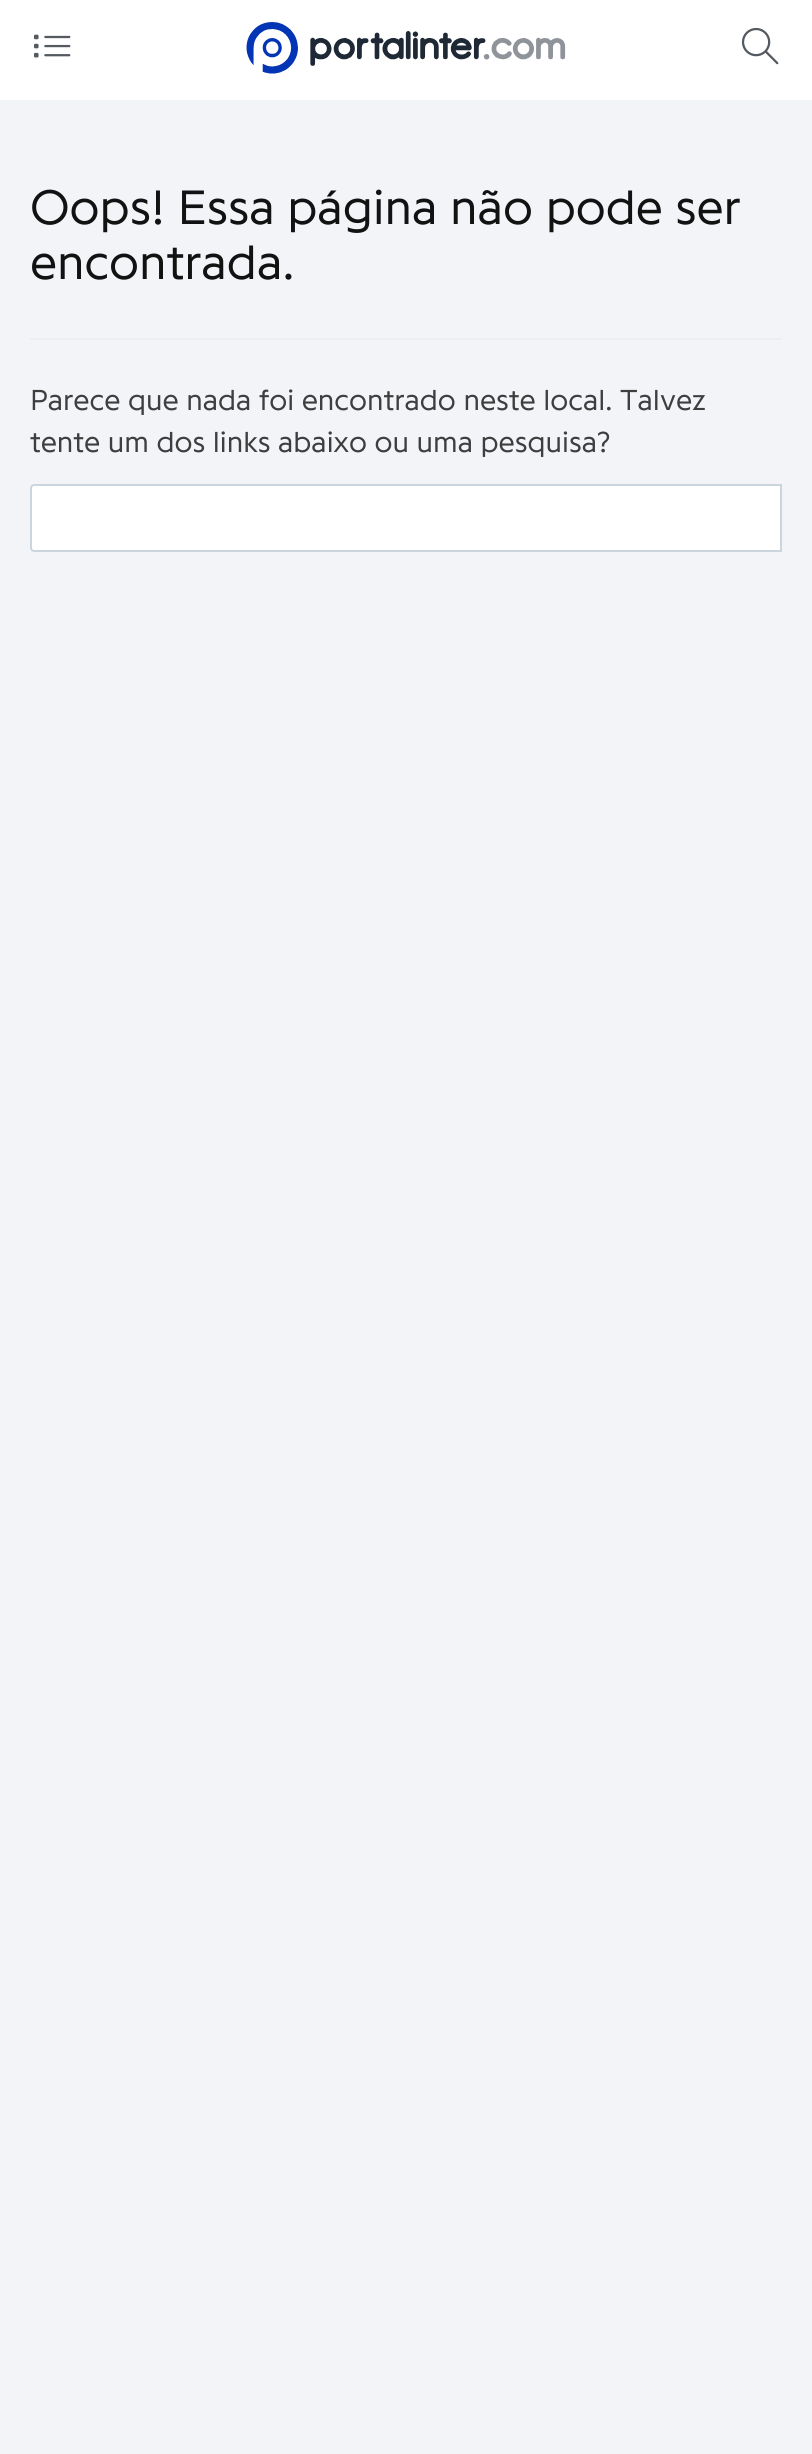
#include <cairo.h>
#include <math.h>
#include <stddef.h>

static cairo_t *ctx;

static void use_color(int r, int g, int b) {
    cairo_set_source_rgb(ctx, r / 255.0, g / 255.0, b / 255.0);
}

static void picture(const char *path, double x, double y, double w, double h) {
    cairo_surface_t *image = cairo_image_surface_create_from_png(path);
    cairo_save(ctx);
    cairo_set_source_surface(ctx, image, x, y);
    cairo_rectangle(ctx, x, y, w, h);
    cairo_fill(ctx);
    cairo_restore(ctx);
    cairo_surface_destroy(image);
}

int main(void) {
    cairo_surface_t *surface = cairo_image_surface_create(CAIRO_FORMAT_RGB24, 812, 2454);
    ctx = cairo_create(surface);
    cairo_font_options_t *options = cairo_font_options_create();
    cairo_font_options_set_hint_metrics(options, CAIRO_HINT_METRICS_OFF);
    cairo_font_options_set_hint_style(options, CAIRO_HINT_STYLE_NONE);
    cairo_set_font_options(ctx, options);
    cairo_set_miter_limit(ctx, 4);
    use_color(242, 244, 248);
    cairo_paint(ctx);
    use_color(255, 255, 255);
    cairo_rectangle(ctx, 0, 0, 812, 100);
    cairo_fill(ctx);
    picture("img1.png", 34, 34, 37, 24);
    picture("img2.png", 246, 22, 320, 52);
    picture("img3.png", 741, 27, 38, 38);
    use_color(238, 238, 238);
    cairo_rectangle(ctx, 30, 338, 752, 2);
    cairo_fill(ctx);
    cairo_select_font_face(ctx, "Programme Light", CAIRO_FONT_SLANT_NORMAL, CAIRO_FONT_WEIGHT_NORMAL);
    cairo_set_font_size(ctx, 50);
    use_color(18, 18, 18);
    cairo_move_to(ctx, 30, 224);
    cairo_show_text(ctx, "Oops! Essa página não pode ser");
    cairo_move_to(ctx, 30, 279);
    cairo_show_text(ctx, "encontrada.");
    cairo_set_font_size(ctx, 30);
    use_color(62, 62, 62);
    cairo_move_to(ctx, 30, 410);
    cairo_show_text(ctx, "Parece que nada foi encontrado neste local. Talvez");
    cairo_move_to(ctx, 30, 452);
    cairo_show_text(ctx, "tente um dos links abaixo ou uma pesquisa?");
    use_color(255, 255, 255);
    cairo_new_path(ctx);
    cairo_move_to(ctx, 34, 485);
    cairo_line_to(ctx, 781, 485);
    cairo_line_to(ctx, 781, 551);
    cairo_line_to(ctx, 34, 551);
    cairo_curve_to(ctx, 32.5, 551, 31, 549.5, 31, 548);
    cairo_line_to(ctx, 31, 488);
    cairo_curve_to(ctx, 31, 486.5, 32.5, 485, 34, 485);
    cairo_close_path(ctx);
    cairo_fill_preserve(ctx);
    use_color(203, 213, 221);
    cairo_stroke(ctx);
    cairo_surface_write_to_png(surface, "result.png");
    cairo_font_options_destroy(options);
    cairo_destroy(ctx);
    cairo_surface_destroy(surface);
    return 0;
}
